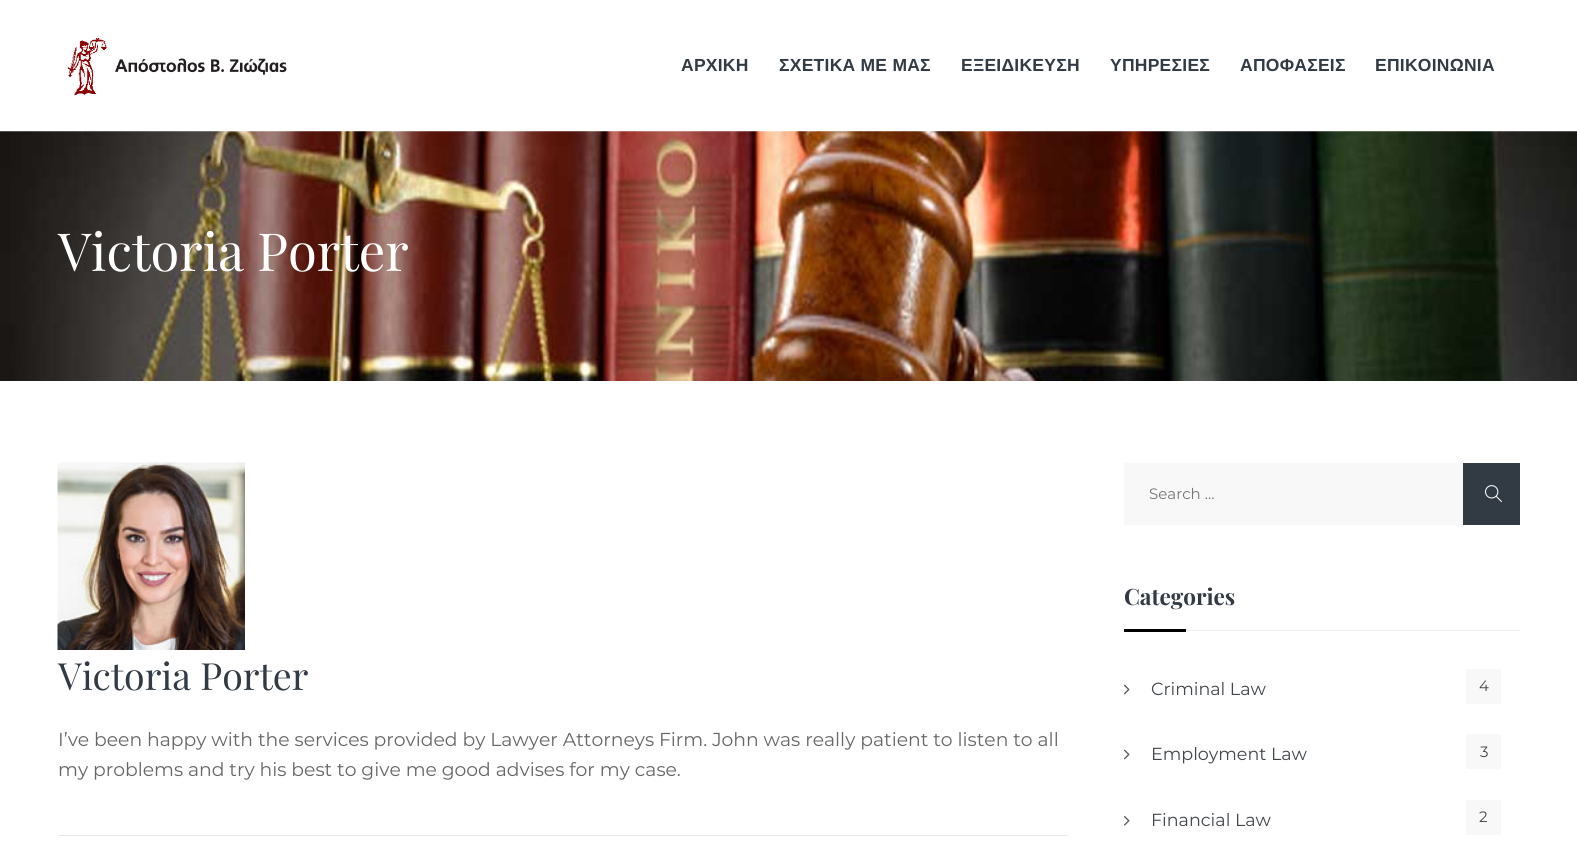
#include <cairo.h>
#include <math.h>
#include <stddef.h>

static cairo_t *ctx;

static void use_color(int r, int g, int b) {
    cairo_set_source_rgb(ctx, r / 255.0, g / 255.0, b / 255.0);
}

static void spaced_text(double x, double y, const char *s, double letter, double word) {
    cairo_move_to(ctx, x, y);
    while (*s) {
        char ch[5] = {0};
        int n = 0;
        do ch[n++] = *s++; while ((*s & 0xC0) == 0x80);
        cairo_show_text(ctx, ch);
        cairo_rel_move_to(ctx, letter + word * (*ch == ' '), 0);
    }
}

static void picture(const char *path, double x, double y, double w, double h) {
    cairo_surface_t *image = cairo_image_surface_create_from_png(path);
    cairo_save(ctx);
    cairo_set_source_surface(ctx, image, x, y);
    cairo_rectangle(ctx, x, y, w, h);
    cairo_fill(ctx);
    cairo_restore(ctx);
    cairo_surface_destroy(image);
}

int main(void) {
    cairo_surface_t *surface = cairo_image_surface_create(CAIRO_FORMAT_RGB24, 1577, 857);
    ctx = cairo_create(surface);
    cairo_font_options_t *options = cairo_font_options_create();
    cairo_font_options_set_hint_metrics(options, CAIRO_HINT_METRICS_OFF);
    cairo_font_options_set_hint_style(options, CAIRO_HINT_STYLE_NONE);
    cairo_set_font_options(ctx, options);
    cairo_set_miter_limit(ctx, 4);
    use_color(255, 255, 255);
    cairo_paint(ctx);
    picture("img1.png", 67, 38, 220, 58);
    cairo_select_font_face(ctx, "Liberation Sans", CAIRO_FONT_SLANT_NORMAL, CAIRO_FONT_WEIGHT_BOLD);
    cairo_set_font_size(ctx, 17.5);
    use_color(50, 58, 67);
    spaced_text(681, 71, "ΑΡΧΙΚΗ", 0.25, 0);
    spaced_text(779, 71, "ΣΧΕΤΙΚΑ ΜΕ ΜΑΣ", 0.25, 0);
    spaced_text(961, 71, "ΕΞΕΙΔΙΚΕΥΣΗ", 0.25, 0);
    spaced_text(1110, 71, "ΥΠΗΡΕΣΙΕΣ", 0.25, 0);
    spaced_text(1240, 71, "ΑΠΟΦΑΣΕΙΣ", 0.25, 0);
    spaced_text(1375, 71, "ΕΠΙΚΟΙΝΩΝΙΑ", 0.25, 0);
    picture("img2.png", 0, 131, 1577, 250);
    cairo_select_font_face(ctx, "Playfair Display", CAIRO_FONT_SLANT_NORMAL, CAIRO_FONT_WEIGHT_NORMAL);
    cairo_set_font_size(ctx, 52.5);
    use_color(255, 255, 255);
    cairo_move_to(ctx, 58, 271);
    cairo_show_text(ctx, "Victoria Porter");
    picture("img3.png", 57, 462, 188, 188);
    cairo_set_font_size(ctx, 37.5);
    use_color(50, 58, 67);
    cairo_move_to(ctx, 58, 690);
    cairo_show_text(ctx, "Victoria Porter");
    cairo_select_font_face(ctx, "Montserrat", CAIRO_FONT_SLANT_NORMAL, CAIRO_FONT_WEIGHT_NORMAL);
    cairo_set_font_size(ctx, 18.75);
    use_color(102, 102, 102);
    cairo_move_to(ctx, 58, 746);
    cairo_show_text(ctx, "I’ve been happy with the services provided by Lawyer Attorneys Firm. John was really patient to listen to all");
    cairo_move_to(ctx, 58, 776);
    cairo_show_text(ctx, "my problems and try his best to give me good advises for my case.");
    use_color(232, 232, 232);
    cairo_rectangle(ctx, 58, 835, 1010, 1);
    cairo_fill(ctx);
    use_color(50, 58, 67);
    cairo_rectangle(ctx, 1463, 463, 57, 62);
    cairo_fill(ctx);
    use_color(248, 248, 248);
    cairo_rectangle(ctx, 1124, 463, 339, 62);
    cairo_fill(ctx);
    cairo_set_font_size(ctx, 15);
    use_color(117, 117, 117);
    cairo_move_to(ctx, 1149, 499);
    cairo_show_text(ctx, "Search …");
    picture("img4.png", 1485, 485, 17, 18);
    use_color(236, 236, 236);
    cairo_rectangle(ctx, 1186, 630, 334, 1);
    cairo_fill(ctx);
    cairo_select_font_face(ctx, "Playfair Display", CAIRO_FONT_SLANT_NORMAL, CAIRO_FONT_WEIGHT_BOLD);
    cairo_set_font_size(ctx, 22.5);
    use_color(50, 58, 67);
    cairo_move_to(ctx, 1124, 605);
    cairo_show_text(ctx, "Categories");
    use_color(0, 0, 0);
    cairo_rectangle(ctx, 1124, 629, 62, 3);
    cairo_fill(ctx);
    picture("img5.png", 1124, 684, 6, 11);
    cairo_select_font_face(ctx, "Montserrat", CAIRO_FONT_SLANT_NORMAL, CAIRO_FONT_WEIGHT_NORMAL);
    cairo_set_font_size(ctx, 17.5);
    use_color(66, 71, 76);
    cairo_move_to(ctx, 1151, 695);
    cairo_show_text(ctx, "Criminal Law");
    use_color(248, 248, 248);
    cairo_rectangle(ctx, 1466, 669, 35, 35);
    cairo_fill(ctx);
    cairo_set_font_size(ctx, 15);
    use_color(66, 71, 76);
    cairo_move_to(ctx, 1479, 691);
    cairo_show_text(ctx, "4");
    picture("img5.png", 1124, 749, 6, 11);
    cairo_set_font_size(ctx, 17.5);
    cairo_move_to(ctx, 1151, 760);
    cairo_show_text(ctx, "Employment Law");
    use_color(248, 248, 248);
    cairo_rectangle(ctx, 1466, 734, 35, 35);
    cairo_fill(ctx);
    cairo_set_font_size(ctx, 15);
    use_color(66, 71, 76);
    cairo_move_to(ctx, 1480, 757);
    cairo_show_text(ctx, "3");
    picture("img6.png", 1124, 815, 6, 11);
    cairo_set_font_size(ctx, 17.5);
    cairo_move_to(ctx, 1151, 826);
    cairo_show_text(ctx, "Financial Law");
    use_color(248, 248, 248);
    cairo_rectangle(ctx, 1466, 800, 35, 35);
    cairo_fill(ctx);
    cairo_set_font_size(ctx, 15);
    use_color(66, 71, 76);
    cairo_move_to(ctx, 1479, 822);
    cairo_show_text(ctx, "2");
    cairo_surface_write_to_png(surface, "result.png");
    cairo_font_options_destroy(options);
    cairo_destroy(ctx);
    cairo_surface_destroy(surface);
    return 0;
}
